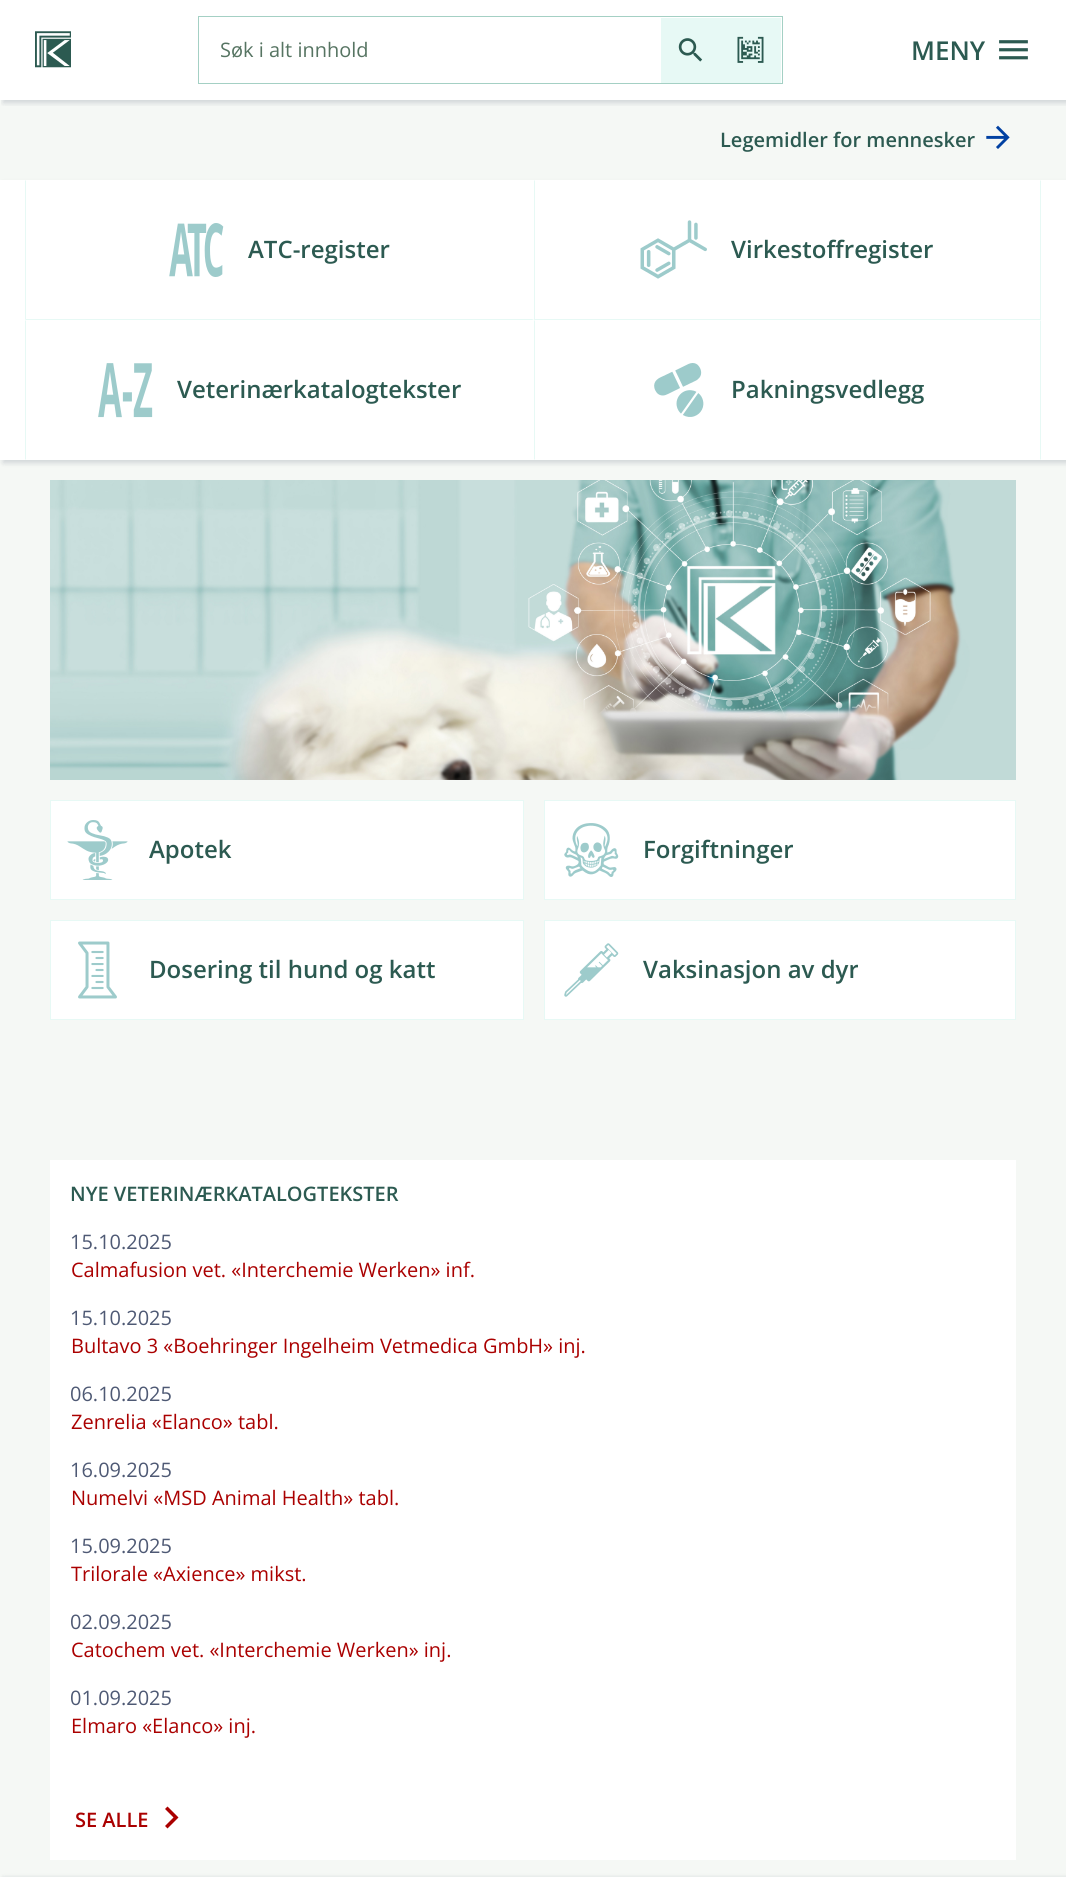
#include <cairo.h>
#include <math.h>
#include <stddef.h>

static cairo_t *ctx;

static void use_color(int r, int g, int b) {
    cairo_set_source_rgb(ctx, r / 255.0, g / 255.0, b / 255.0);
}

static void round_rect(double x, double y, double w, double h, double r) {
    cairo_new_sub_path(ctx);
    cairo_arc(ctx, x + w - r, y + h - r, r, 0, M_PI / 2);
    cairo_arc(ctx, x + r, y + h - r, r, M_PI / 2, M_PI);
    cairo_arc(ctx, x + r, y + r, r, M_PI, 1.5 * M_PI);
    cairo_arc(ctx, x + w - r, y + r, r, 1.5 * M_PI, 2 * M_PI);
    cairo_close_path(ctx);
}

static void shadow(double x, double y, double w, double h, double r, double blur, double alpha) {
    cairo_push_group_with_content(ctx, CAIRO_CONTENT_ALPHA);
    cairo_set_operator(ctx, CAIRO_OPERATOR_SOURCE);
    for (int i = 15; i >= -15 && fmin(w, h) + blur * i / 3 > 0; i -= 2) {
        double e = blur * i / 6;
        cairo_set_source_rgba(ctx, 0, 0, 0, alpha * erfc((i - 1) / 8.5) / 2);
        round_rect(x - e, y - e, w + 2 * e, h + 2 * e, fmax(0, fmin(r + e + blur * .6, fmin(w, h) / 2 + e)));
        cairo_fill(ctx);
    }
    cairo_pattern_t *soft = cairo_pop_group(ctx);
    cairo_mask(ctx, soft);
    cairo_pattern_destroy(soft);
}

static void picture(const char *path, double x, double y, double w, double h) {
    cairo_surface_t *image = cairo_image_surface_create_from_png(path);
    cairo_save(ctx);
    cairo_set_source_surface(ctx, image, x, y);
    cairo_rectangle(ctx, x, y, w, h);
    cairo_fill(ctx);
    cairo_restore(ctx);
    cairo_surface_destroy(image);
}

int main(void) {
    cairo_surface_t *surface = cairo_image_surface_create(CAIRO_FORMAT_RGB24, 1066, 1877);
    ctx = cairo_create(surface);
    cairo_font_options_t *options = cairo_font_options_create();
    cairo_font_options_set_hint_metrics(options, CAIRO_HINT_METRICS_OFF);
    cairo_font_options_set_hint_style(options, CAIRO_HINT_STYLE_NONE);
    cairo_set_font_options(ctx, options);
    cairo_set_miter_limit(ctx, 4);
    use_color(255, 255, 255);
    cairo_paint(ctx);
    use_color(245, 248, 245);
    cairo_rectangle(ctx, 0, 100, 1066, 1777);
    cairo_fill(ctx);
    cairo_save(ctx);
    cairo_rectangle(ctx, 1, 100, 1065, 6);
    cairo_clip(ctx);
    use_color(0, 14, 47);
    shadow(3, 3, 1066, 100, 0, 2.5, 0.15);
    cairo_restore(ctx);
    picture("img1.png", 35, 31, 36, 37);
    cairo_rectangle(ctx, 198.5, 16.5, 584, 67);
    use_color(164, 208, 196);
    cairo_set_line_width(ctx, 1);
    cairo_stroke(ctx);
    use_color(231, 249, 245);
    cairo_rectangle(ctx, 661, 18, 120, 65);
    cairo_fill(ctx);
    picture("img2.png", 678, 38, 25, 24);
    cairo_select_font_face(ctx, "Open Sans", CAIRO_FONT_SLANT_NORMAL, CAIRO_FONT_WEIGHT_NORMAL);
    cairo_set_font_size(ctx, 20);
    use_color(86, 116, 98);
    cairo_move_to(ctx, 220, 57);
    cairo_show_text(ctx, "Søk i alt innhold");
    picture("img3.png", 737, 36, 27, 27);
    cairo_select_font_face(ctx, "Open Sans SemiBold", CAIRO_FONT_SLANT_NORMAL, CAIRO_FONT_WEIGHT_NORMAL);
    cairo_set_font_size(ctx, 26);
    use_color(44, 90, 81);
    cairo_move_to(ctx, 911, 60);
    cairo_show_text(ctx, "MENY");
    picture("img4.png", 999, 40, 29, 20);
    cairo_set_font_size(ctx, 20);
    cairo_move_to(ctx, 720, 147);
    cairo_show_text(ctx, "Legemidler for mennesker");
    picture("img5.png", 986, 125, 24, 24);
    use_color(0, 14, 47);
    shadow(3, 183, 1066, 280, 0, 2.5, 0.15);
    use_color(255, 255, 255);
    cairo_rectangle(ctx, 0, 180, 1066, 280);
    cairo_fill(ctx);
    use_color(231, 249, 245);
    cairo_new_path(ctx);
    cairo_move_to(ctx, 534, 320);
    cairo_line_to(ctx, 25, 320);
    cairo_line_to(ctx, 26, 319);
    cairo_line_to(ctx, 532, 319);
    cairo_close_path(ctx);
    cairo_fill(ctx);
    cairo_new_path(ctx);
    cairo_move_to(ctx, 25, 320);
    cairo_line_to(ctx, 25, 180);
    cairo_line_to(ctx, 26, 181);
    cairo_line_to(ctx, 26, 319);
    cairo_close_path(ctx);
    cairo_fill(ctx);
    picture("img6.png", 169, 223, 55, 54);
    cairo_set_font_size(ctx, 24);
    use_color(44, 90, 81);
    cairo_move_to(ctx, 248, 258);
    cairo_show_text(ctx, "ATC-register");
    use_color(231, 249, 245);
    cairo_new_path(ctx);
    cairo_move_to(ctx, 1041, 180);
    cairo_line_to(ctx, 1041, 320);
    cairo_line_to(ctx, 1040, 319);
    cairo_line_to(ctx, 1040, 181);
    cairo_close_path(ctx);
    cairo_fill(ctx);
    cairo_rectangle(ctx, 534, 319, 507, 1);
    cairo_fill(ctx);
    cairo_new_path(ctx);
    cairo_move_to(ctx, 534, 320);
    cairo_line_to(ctx, 534, 180);
    cairo_line_to(ctx, 535, 181);
    cairo_line_to(ctx, 535, 319);
    cairo_close_path(ctx);
    cairo_fill(ctx);
    picture("img7.png", 640, 220, 67, 59);
    use_color(44, 90, 81);
    cairo_move_to(ctx, 731, 258);
    cairo_show_text(ctx, "Virkestoffregister");
    use_color(231, 249, 245);
    cairo_new_path(ctx);
    cairo_move_to(ctx, 25, 460);
    cairo_line_to(ctx, 25, 320);
    cairo_line_to(ctx, 26, 321);
    cairo_line_to(ctx, 26, 459);
    cairo_close_path(ctx);
    cairo_fill(ctx);
    picture("img8.png", 98, 363, 55, 55);
    use_color(44, 90, 81);
    cairo_move_to(ctx, 177, 398);
    cairo_show_text(ctx, "Veterinærkatalogtekster");
    use_color(231, 249, 245);
    cairo_new_path(ctx);
    cairo_move_to(ctx, 1041, 320);
    cairo_line_to(ctx, 1041, 460);
    cairo_line_to(ctx, 1040, 459);
    cairo_line_to(ctx, 1040, 321);
    cairo_close_path(ctx);
    cairo_fill(ctx);
    cairo_new_path(ctx);
    cairo_move_to(ctx, 534, 460);
    cairo_line_to(ctx, 534, 320);
    cairo_line_to(ctx, 535, 321);
    cairo_line_to(ctx, 535, 459);
    cairo_close_path(ctx);
    cairo_fill(ctx);
    picture("img9.png", 654, 363, 50, 54);
    use_color(44, 90, 81);
    cairo_move_to(ctx, 731, 398);
    cairo_show_text(ctx, "Pakningsvedlegg");
    picture("img10.png", 50, 480, 966, 300);
    use_color(255, 255, 255);
    cairo_rectangle(ctx, 50.5, 800.5, 473, 99);
    cairo_fill_preserve(ctx);
    use_color(231, 249, 245);
    cairo_stroke(ctx);
    picture("img11.png", 67, 820, 61, 60);
    use_color(44, 90, 81);
    cairo_move_to(ctx, 149, 858);
    cairo_show_text(ctx, "Apotek");
    use_color(255, 255, 255);
    cairo_rectangle(ctx, 544.5, 800.5, 471, 99);
    cairo_fill_preserve(ctx);
    use_color(231, 249, 245);
    cairo_stroke(ctx);
    picture("img12.png", 564, 823, 55, 54);
    use_color(44, 90, 81);
    cairo_move_to(ctx, 643, 858);
    cairo_show_text(ctx, "Forgiftninger");
    use_color(255, 255, 255);
    cairo_rectangle(ctx, 50.5, 920.5, 473, 99);
    cairo_fill_preserve(ctx);
    use_color(231, 249, 245);
    cairo_stroke(ctx);
    picture("img13.png", 78, 941, 39, 58);
    use_color(44, 90, 81);
    cairo_move_to(ctx, 149, 978);
    cairo_show_text(ctx, "Dosering til hund og katt");
    use_color(255, 255, 255);
    cairo_rectangle(ctx, 544.5, 920.5, 471, 99);
    cairo_fill_preserve(ctx);
    use_color(231, 249, 245);
    cairo_stroke(ctx);
    picture("img14.png", 564, 943, 55, 54);
    use_color(44, 90, 81);
    cairo_move_to(ctx, 643, 978);
    cairo_show_text(ctx, "Vaksinasjon av dyr");
    use_color(255, 255, 255);
    cairo_rectangle(ctx, 50, 1160, 966, 700);
    cairo_fill(ctx);
    cairo_set_font_size(ctx, 20);
    use_color(44, 90, 81);
    cairo_move_to(ctx, 70, 1201);
    cairo_show_text(ctx, "NYE VETERINÆRKATALOGTEKSTER");
    cairo_select_font_face(ctx, "Open Sans", CAIRO_FONT_SLANT_NORMAL, CAIRO_FONT_WEIGHT_NORMAL);
    use_color(78, 89, 116);
    cairo_move_to(ctx, 70, 1249);
    cairo_show_text(ctx, "15.10.2025");
    use_color(170, 0, 0);
    cairo_move_to(ctx, 71, 1277);
    cairo_show_text(ctx, "Calmafusion vet. «Interchemie Werken» inf.");
    use_color(78, 89, 116);
    cairo_move_to(ctx, 70, 1325);
    cairo_show_text(ctx, "15.10.2025");
    use_color(170, 0, 0);
    cairo_move_to(ctx, 71, 1353);
    cairo_show_text(ctx, "Bultavo 3 «Boehringer Ingelheim Vetmedica GmbH» inj.");
    use_color(78, 89, 116);
    cairo_move_to(ctx, 70, 1401);
    cairo_show_text(ctx, "06.10.2025");
    use_color(170, 0, 0);
    cairo_move_to(ctx, 71, 1429);
    cairo_show_text(ctx, "Zenrelia «Elanco» tabl.");
    use_color(78, 89, 116);
    cairo_move_to(ctx, 70, 1477);
    cairo_show_text(ctx, "16.09.2025");
    use_color(170, 0, 0);
    cairo_move_to(ctx, 71, 1505);
    cairo_show_text(ctx, "Numelvi «MSD Animal Health» tabl.");
    use_color(78, 89, 116);
    cairo_move_to(ctx, 70, 1553);
    cairo_show_text(ctx, "15.09.2025");
    use_color(170, 0, 0);
    cairo_move_to(ctx, 71, 1581);
    cairo_show_text(ctx, "Trilorale «Axience» mikst.");
    use_color(78, 89, 116);
    cairo_move_to(ctx, 70, 1629);
    cairo_show_text(ctx, "02.09.2025");
    use_color(170, 0, 0);
    cairo_move_to(ctx, 71, 1657);
    cairo_show_text(ctx, "Catochem vet. «Interchemie Werken» inj.");
    use_color(78, 89, 116);
    cairo_move_to(ctx, 70, 1705);
    cairo_show_text(ctx, "01.09.2025");
    use_color(170, 0, 0);
    cairo_move_to(ctx, 71, 1733);
    cairo_show_text(ctx, "Elmaro «Elanco» inj.");
    cairo_select_font_face(ctx, "Open Sans SemiBold", CAIRO_FONT_SLANT_NORMAL, CAIRO_FONT_WEIGHT_NORMAL);
    cairo_move_to(ctx, 75, 1827);
    cairo_show_text(ctx, "SE ALLE");
    cairo_new_path(ctx);
    cairo_move_to(ctx, 178.5, 1817.5);
    cairo_line_to(ctx, 167.5, 1806.5);
    cairo_line_to(ctx, 165, 1809);
    cairo_line_to(ctx, 173.5, 1817.5);
    cairo_line_to(ctx, 165, 1826);
    cairo_line_to(ctx, 167.5, 1828.5);
    cairo_close_path(ctx);
    cairo_fill(ctx);
    use_color(0, 14, 47);
    shadow(3, 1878, 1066, 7, 0, 2.5, 0.15);
    cairo_surface_write_to_png(surface, "result.png");
    cairo_font_options_destroy(options);
    cairo_destroy(ctx);
    cairo_surface_destroy(surface);
    return 0;
}
